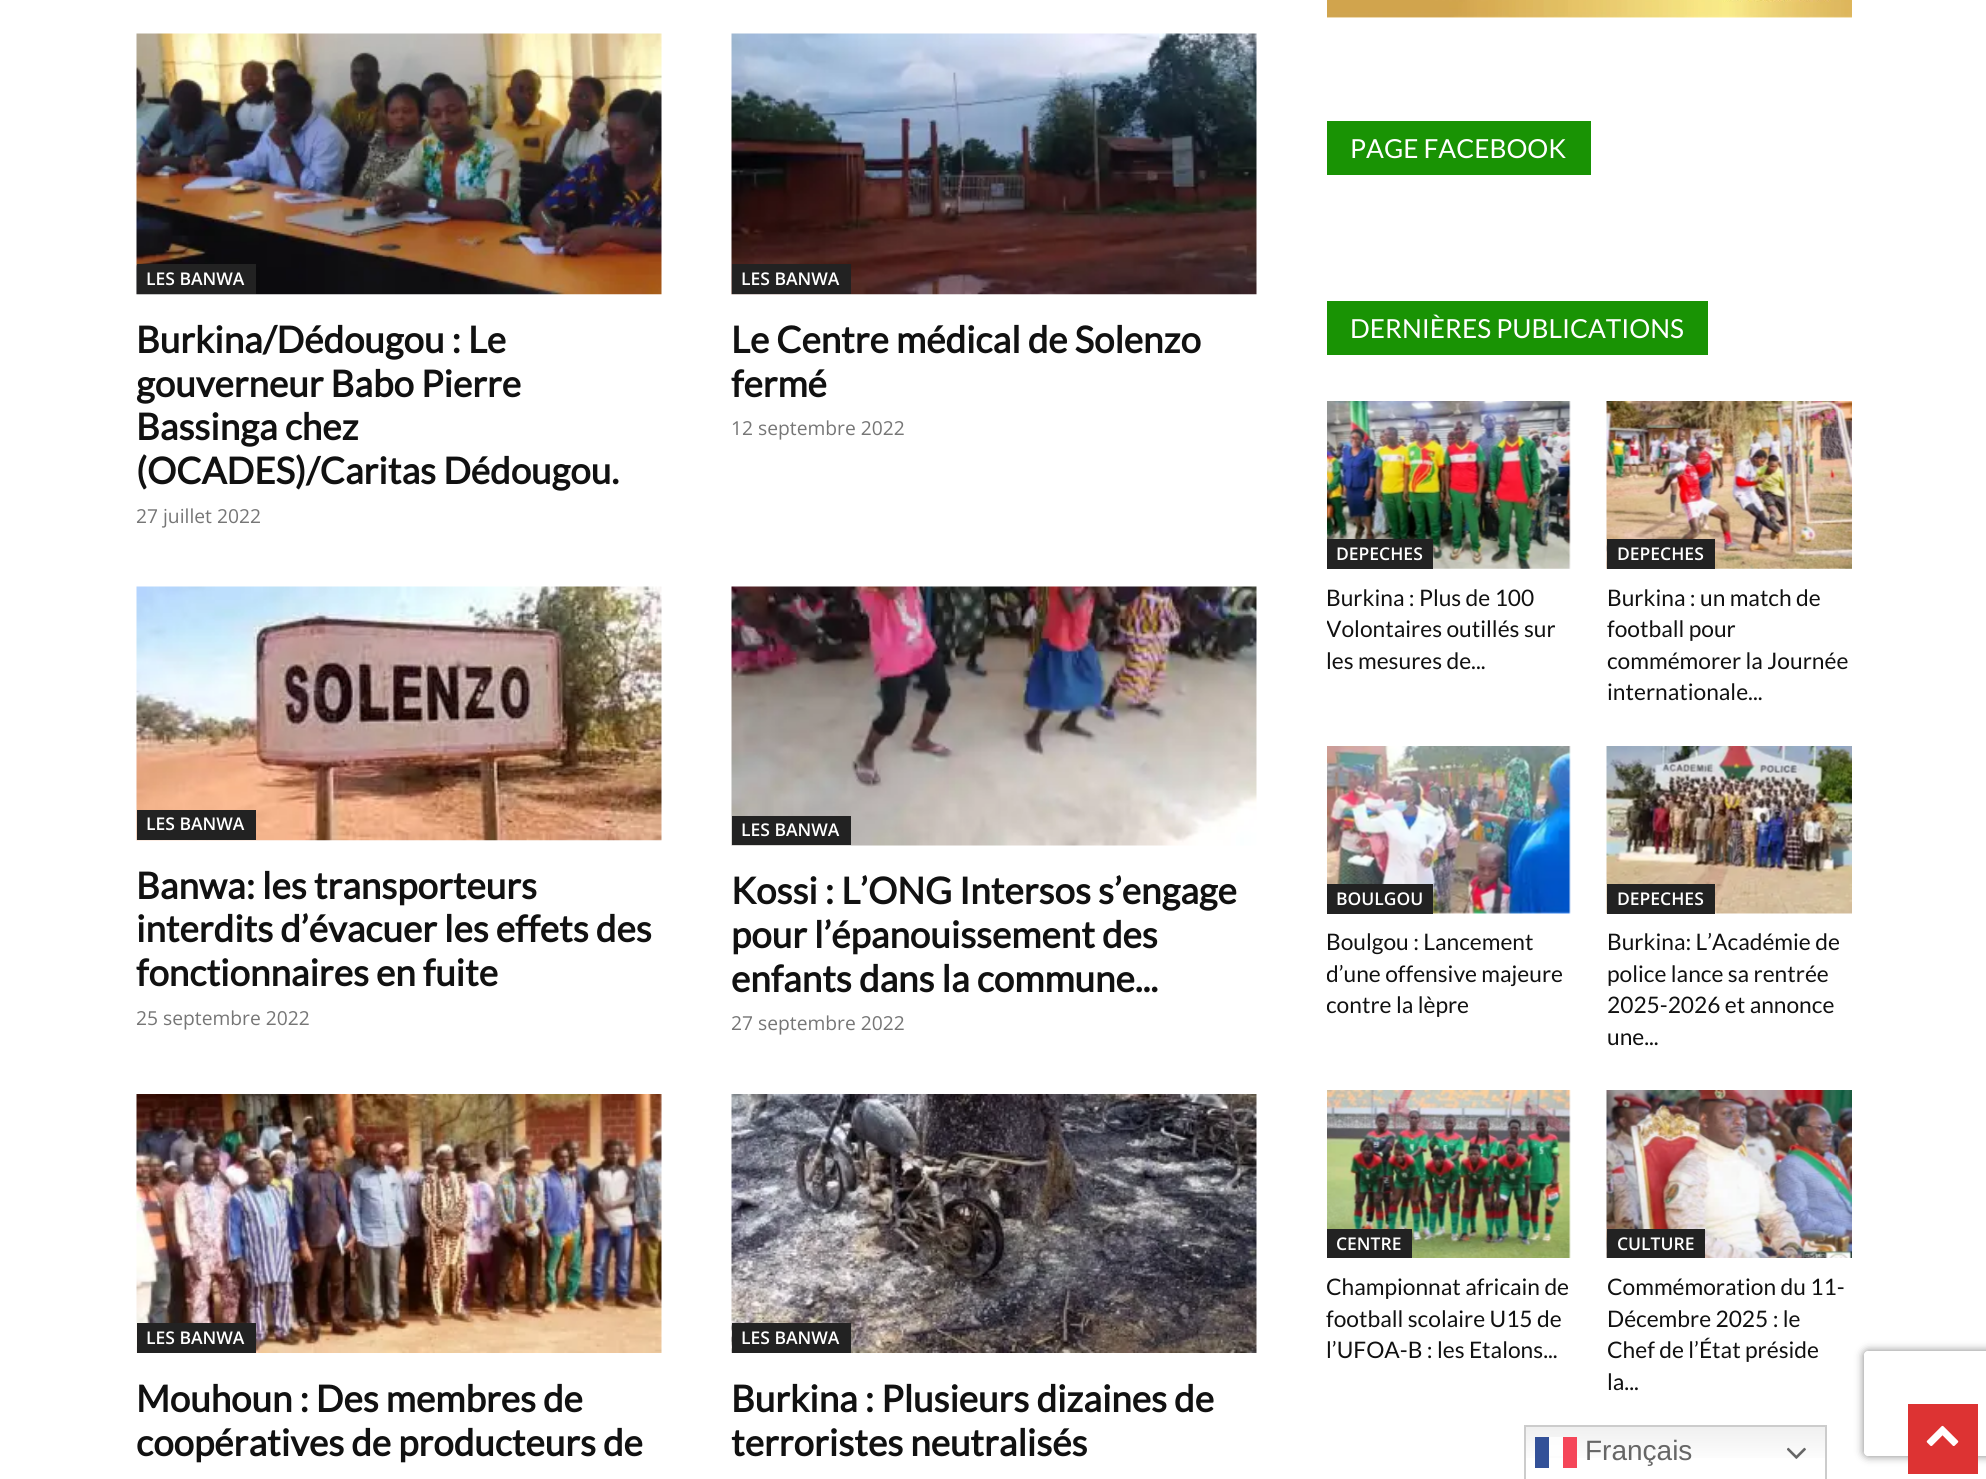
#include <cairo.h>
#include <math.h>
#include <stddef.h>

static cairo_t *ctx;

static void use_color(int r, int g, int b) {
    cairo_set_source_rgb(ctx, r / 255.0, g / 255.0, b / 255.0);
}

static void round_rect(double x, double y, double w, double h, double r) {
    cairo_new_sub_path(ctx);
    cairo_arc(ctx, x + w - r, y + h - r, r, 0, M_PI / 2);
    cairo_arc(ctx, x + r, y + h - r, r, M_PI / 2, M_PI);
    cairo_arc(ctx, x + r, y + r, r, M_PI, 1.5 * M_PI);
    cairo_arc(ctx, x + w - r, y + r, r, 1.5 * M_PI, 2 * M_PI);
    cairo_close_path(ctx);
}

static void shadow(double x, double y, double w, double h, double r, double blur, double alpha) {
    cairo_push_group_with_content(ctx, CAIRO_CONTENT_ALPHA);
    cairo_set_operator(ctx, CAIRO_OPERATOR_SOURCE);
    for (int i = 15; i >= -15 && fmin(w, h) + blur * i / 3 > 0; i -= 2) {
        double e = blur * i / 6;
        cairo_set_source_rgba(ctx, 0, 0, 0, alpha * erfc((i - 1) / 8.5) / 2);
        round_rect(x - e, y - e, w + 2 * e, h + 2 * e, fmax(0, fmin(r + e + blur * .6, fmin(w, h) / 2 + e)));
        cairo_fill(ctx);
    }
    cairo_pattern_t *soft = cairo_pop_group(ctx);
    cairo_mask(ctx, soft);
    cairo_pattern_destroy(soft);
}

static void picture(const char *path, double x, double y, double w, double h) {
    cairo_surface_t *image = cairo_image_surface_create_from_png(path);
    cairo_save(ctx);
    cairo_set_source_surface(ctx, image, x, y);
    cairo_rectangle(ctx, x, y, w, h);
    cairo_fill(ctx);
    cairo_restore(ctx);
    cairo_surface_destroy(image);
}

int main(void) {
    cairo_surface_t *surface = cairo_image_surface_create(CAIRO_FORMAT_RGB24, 1986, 1479);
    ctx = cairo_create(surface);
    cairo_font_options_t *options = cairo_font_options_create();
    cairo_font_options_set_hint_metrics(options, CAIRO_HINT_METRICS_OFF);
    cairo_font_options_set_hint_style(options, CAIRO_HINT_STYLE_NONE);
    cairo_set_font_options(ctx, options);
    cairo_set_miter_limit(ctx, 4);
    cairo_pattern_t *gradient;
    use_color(255, 255, 255);
    cairo_paint(ctx);
    picture("img1.png", 136, 33, 526, 262);
    use_color(34, 34, 34);
    cairo_rectangle(ctx, 137, 264, 119, 30);
    cairo_fill(ctx);
    cairo_select_font_face(ctx, "Open Sans SemiBold", CAIRO_FONT_SLANT_NORMAL, CAIRO_FONT_WEIGHT_NORMAL);
    cairo_set_font_size(ctx, 17.5);
    use_color(255, 255, 255);
    cairo_move_to(ctx, 146, 285);
    cairo_show_text(ctx, "LES BANWA");
    cairo_select_font_face(ctx, "Lato", CAIRO_FONT_SLANT_NORMAL, CAIRO_FONT_WEIGHT_BOLD);
    cairo_set_font_size(ctx, 36.75);
    use_color(17, 17, 17);
    cairo_move_to(ctx, 136, 353);
    cairo_show_text(ctx, "Burkina/Dédougou : Le");
    cairo_move_to(ctx, 136, 397);
    cairo_show_text(ctx, "gouverneur Babo Pierre");
    cairo_move_to(ctx, 136, 440);
    cairo_show_text(ctx, "Bassinga chez");
    cairo_move_to(ctx, 136, 484);
    cairo_show_text(ctx, "(OCADES)/Caritas Dédougou.");
    cairo_select_font_face(ctx, "Open Sans", CAIRO_FONT_SLANT_NORMAL, CAIRO_FONT_WEIGHT_NORMAL);
    cairo_set_font_size(ctx, 19.25);
    use_color(118, 118, 118);
    cairo_move_to(ctx, 136, 523);
    cairo_show_text(ctx, "27 juillet 2022");
    picture("img2.png", 731, 33, 526, 262);
    use_color(34, 34, 34);
    cairo_rectangle(ctx, 732, 264, 119, 30);
    cairo_fill(ctx);
    cairo_select_font_face(ctx, "Open Sans SemiBold", CAIRO_FONT_SLANT_NORMAL, CAIRO_FONT_WEIGHT_NORMAL);
    cairo_set_font_size(ctx, 17.5);
    use_color(255, 255, 255);
    cairo_move_to(ctx, 741, 285);
    cairo_show_text(ctx, "LES BANWA");
    cairo_select_font_face(ctx, "Lato", CAIRO_FONT_SLANT_NORMAL, CAIRO_FONT_WEIGHT_BOLD);
    cairo_set_font_size(ctx, 36.75);
    use_color(17, 17, 17);
    cairo_move_to(ctx, 731, 353);
    cairo_show_text(ctx, "Le Centre médical de Solenzo");
    cairo_move_to(ctx, 731, 397);
    cairo_show_text(ctx, "fermé");
    cairo_select_font_face(ctx, "Open Sans", CAIRO_FONT_SLANT_NORMAL, CAIRO_FONT_WEIGHT_NORMAL);
    cairo_set_font_size(ctx, 19.25);
    use_color(118, 118, 118);
    cairo_move_to(ctx, 731, 435);
    cairo_show_text(ctx, "12 septembre 2022");
    picture("img3.png", 136, 586, 526, 255);
    use_color(34, 34, 34);
    cairo_rectangle(ctx, 137, 810, 119, 30);
    cairo_fill(ctx);
    cairo_select_font_face(ctx, "Open Sans SemiBold", CAIRO_FONT_SLANT_NORMAL, CAIRO_FONT_WEIGHT_NORMAL);
    cairo_set_font_size(ctx, 17.5);
    use_color(255, 255, 255);
    cairo_move_to(ctx, 146, 830);
    cairo_show_text(ctx, "LES BANWA");
    cairo_select_font_face(ctx, "Lato", CAIRO_FONT_SLANT_NORMAL, CAIRO_FONT_WEIGHT_BOLD);
    cairo_set_font_size(ctx, 36.75);
    use_color(17, 17, 17);
    cairo_move_to(ctx, 136, 899);
    cairo_show_text(ctx, "Banwa: les transporteurs");
    cairo_move_to(ctx, 136, 942);
    cairo_show_text(ctx, "interdits d’évacuer les effets des");
    cairo_move_to(ctx, 136, 986);
    cairo_show_text(ctx, "fonctionnaires en fuite");
    cairo_select_font_face(ctx, "Open Sans", CAIRO_FONT_SLANT_NORMAL, CAIRO_FONT_WEIGHT_NORMAL);
    cairo_set_font_size(ctx, 19.25);
    use_color(118, 118, 118);
    cairo_move_to(ctx, 136, 1025);
    cairo_show_text(ctx, "25 septembre 2022");
    picture("img4.png", 731, 586, 526, 260);
    use_color(34, 34, 34);
    cairo_rectangle(ctx, 732, 816, 119, 29);
    cairo_fill(ctx);
    cairo_select_font_face(ctx, "Open Sans SemiBold", CAIRO_FONT_SLANT_NORMAL, CAIRO_FONT_WEIGHT_NORMAL);
    cairo_set_font_size(ctx, 17.5);
    use_color(255, 255, 255);
    cairo_move_to(ctx, 741, 836);
    cairo_show_text(ctx, "LES BANWA");
    cairo_select_font_face(ctx, "Lato", CAIRO_FONT_SLANT_NORMAL, CAIRO_FONT_WEIGHT_BOLD);
    cairo_set_font_size(ctx, 36.75);
    use_color(17, 17, 17);
    cairo_move_to(ctx, 731, 904);
    cairo_show_text(ctx, "Kossi : L’ONG Intersos s’engage");
    cairo_move_to(ctx, 731, 948);
    cairo_show_text(ctx, "pour l’épanouissement des");
    cairo_move_to(ctx, 731, 992);
    cairo_show_text(ctx, "enfants dans la commune...");
    cairo_select_font_face(ctx, "Open Sans", CAIRO_FONT_SLANT_NORMAL, CAIRO_FONT_WEIGHT_NORMAL);
    cairo_set_font_size(ctx, 19.25);
    use_color(118, 118, 118);
    cairo_move_to(ctx, 731, 1030);
    cairo_show_text(ctx, "27 septembre 2022");
    picture("img5.png", 136, 1094, 526, 259);
    use_color(34, 34, 34);
    cairo_rectangle(ctx, 137, 1323, 119, 30);
    cairo_fill(ctx);
    cairo_select_font_face(ctx, "Open Sans SemiBold", CAIRO_FONT_SLANT_NORMAL, CAIRO_FONT_WEIGHT_NORMAL);
    cairo_set_font_size(ctx, 17.5);
    use_color(255, 255, 255);
    cairo_move_to(ctx, 146, 1344);
    cairo_show_text(ctx, "LES BANWA");
    cairo_select_font_face(ctx, "Lato", CAIRO_FONT_SLANT_NORMAL, CAIRO_FONT_WEIGHT_BOLD);
    cairo_set_font_size(ctx, 36.75);
    use_color(17, 17, 17);
    cairo_move_to(ctx, 136, 1412);
    cairo_show_text(ctx, "Mouhoun : Des membres de");
    cairo_move_to(ctx, 136, 1456);
    cairo_show_text(ctx, "coopératives de producteurs de");
    picture("img6.png", 731, 1094, 526, 259);
    use_color(34, 34, 34);
    cairo_rectangle(ctx, 732, 1323, 119, 30);
    cairo_fill(ctx);
    cairo_select_font_face(ctx, "Open Sans SemiBold", CAIRO_FONT_SLANT_NORMAL, CAIRO_FONT_WEIGHT_NORMAL);
    cairo_set_font_size(ctx, 17.5);
    use_color(255, 255, 255);
    cairo_move_to(ctx, 741, 1344);
    cairo_show_text(ctx, "LES BANWA");
    cairo_select_font_face(ctx, "Lato", CAIRO_FONT_SLANT_NORMAL, CAIRO_FONT_WEIGHT_BOLD);
    cairo_set_font_size(ctx, 36.75);
    use_color(17, 17, 17);
    cairo_move_to(ctx, 731, 1412);
    cairo_show_text(ctx, "Burkina : Plusieurs dizaines de");
    cairo_move_to(ctx, 731, 1456);
    cairo_show_text(ctx, "terroristes neutralisés");
    picture("img7.png", 1327, 0, 525, 18);
    use_color(25, 147, 4);
    cairo_rectangle(ctx, 1327, 121, 264, 54);
    cairo_fill(ctx);
    cairo_select_font_face(ctx, "Lato", CAIRO_FONT_SLANT_NORMAL, CAIRO_FONT_WEIGHT_NORMAL);
    cairo_set_font_size(ctx, 26.25);
    use_color(255, 255, 255);
    cairo_move_to(ctx, 1350, 158);
    cairo_show_text(ctx, "PAGE FACEBOOK");
    use_color(25, 147, 4);
    cairo_rectangle(ctx, 1327, 301, 381, 54);
    cairo_fill(ctx);
    use_color(255, 255, 255);
    cairo_move_to(ctx, 1350, 338);
    cairo_show_text(ctx, "DERNIÈRES PUBLICATIONS");
    picture("img8.png", 1327, 401, 244, 168);
    use_color(34, 34, 34);
    cairo_rectangle(ctx, 1327, 539, 106, 30);
    cairo_fill(ctx);
    cairo_select_font_face(ctx, "Open Sans SemiBold", CAIRO_FONT_SLANT_NORMAL, CAIRO_FONT_WEIGHT_NORMAL);
    cairo_set_font_size(ctx, 17.5);
    use_color(255, 255, 255);
    cairo_move_to(ctx, 1336, 560);
    cairo_show_text(ctx, "DEPECHES");
    cairo_select_font_face(ctx, "Lato", CAIRO_FONT_SLANT_NORMAL, CAIRO_FONT_WEIGHT_NORMAL);
    cairo_set_font_size(ctx, 22.75);
    use_color(17, 17, 17);
    cairo_move_to(ctx, 1326, 606);
    cairo_show_text(ctx, "Burkina : Plus de 100");
    cairo_save(ctx);
    cairo_rectangle(ctx, 1327, 301, 525, 1096);
    cairo_clip(ctx);
    cairo_move_to(ctx, 1326, 637);
    cairo_show_text(ctx, "Volontaires outillés sur");
    cairo_restore(ctx);
    cairo_move_to(ctx, 1326, 669);
    cairo_show_text(ctx, "les mesures de...");
    picture("img9.png", 1606, 401, 246, 168);
    use_color(34, 34, 34);
    cairo_rectangle(ctx, 1607, 539, 108, 30);
    cairo_fill(ctx);
    cairo_select_font_face(ctx, "Open Sans SemiBold", CAIRO_FONT_SLANT_NORMAL, CAIRO_FONT_WEIGHT_NORMAL);
    cairo_set_font_size(ctx, 17.5);
    use_color(255, 255, 255);
    cairo_move_to(ctx, 1617, 560);
    cairo_show_text(ctx, "DEPECHES");
    cairo_select_font_face(ctx, "Lato", CAIRO_FONT_SLANT_NORMAL, CAIRO_FONT_WEIGHT_NORMAL);
    cairo_set_font_size(ctx, 22.75);
    use_color(17, 17, 17);
    cairo_move_to(ctx, 1607, 606);
    cairo_show_text(ctx, "Burkina : un match de");
    cairo_move_to(ctx, 1607, 637);
    cairo_show_text(ctx, "football pour");
    cairo_move_to(ctx, 1607, 669);
    cairo_show_text(ctx, "commémorer la Journée");
    cairo_move_to(ctx, 1607, 700);
    cairo_show_text(ctx, "internationale...");
    picture("img10.png", 1327, 746, 244, 168);
    use_color(34, 34, 34);
    cairo_rectangle(ctx, 1327, 884, 106, 30);
    cairo_fill(ctx);
    cairo_select_font_face(ctx, "Open Sans SemiBold", CAIRO_FONT_SLANT_NORMAL, CAIRO_FONT_WEIGHT_NORMAL);
    cairo_set_font_size(ctx, 17.5);
    use_color(255, 255, 255);
    cairo_move_to(ctx, 1336, 905);
    cairo_show_text(ctx, "BOULGOU");
    cairo_select_font_face(ctx, "Lato", CAIRO_FONT_SLANT_NORMAL, CAIRO_FONT_WEIGHT_NORMAL);
    cairo_set_font_size(ctx, 22.75);
    use_color(17, 17, 17);
    cairo_move_to(ctx, 1326, 950);
    cairo_show_text(ctx, "Boulgou : Lancement");
    cairo_save(ctx);
    cairo_rectangle(ctx, 1327, 301, 525, 1096);
    cairo_clip(ctx);
    cairo_move_to(ctx, 1326, 982);
    cairo_show_text(ctx, "d’une offensive majeure");
    cairo_move_to(ctx, 1326, 1013);
    cairo_show_text(ctx, "contre la lèpre");
    cairo_restore(ctx);
    picture("img11.png", 1606, 746, 246, 168);
    use_color(34, 34, 34);
    cairo_rectangle(ctx, 1607, 884, 108, 30);
    cairo_fill(ctx);
    cairo_select_font_face(ctx, "Open Sans SemiBold", CAIRO_FONT_SLANT_NORMAL, CAIRO_FONT_WEIGHT_NORMAL);
    cairo_set_font_size(ctx, 17.5);
    use_color(255, 255, 255);
    cairo_move_to(ctx, 1617, 905);
    cairo_show_text(ctx, "DEPECHES");
    cairo_select_font_face(ctx, "Lato", CAIRO_FONT_SLANT_NORMAL, CAIRO_FONT_WEIGHT_NORMAL);
    cairo_set_font_size(ctx, 22.75);
    use_color(17, 17, 17);
    cairo_move_to(ctx, 1607, 950);
    cairo_show_text(ctx, "Burkina: L’Académie de");
    cairo_move_to(ctx, 1607, 982);
    cairo_show_text(ctx, "police lance sa rentrée");
    cairo_move_to(ctx, 1607, 1013);
    cairo_show_text(ctx, "2025-2026 et annonce");
    cairo_move_to(ctx, 1607, 1045);
    cairo_show_text(ctx, "une...");
    picture("img12.png", 1327, 1090, 244, 168);
    use_color(34, 34, 34);
    cairo_rectangle(ctx, 1327, 1229, 85, 29);
    cairo_fill(ctx);
    cairo_select_font_face(ctx, "Open Sans SemiBold", CAIRO_FONT_SLANT_NORMAL, CAIRO_FONT_WEIGHT_NORMAL);
    cairo_set_font_size(ctx, 17.5);
    use_color(255, 255, 255);
    cairo_move_to(ctx, 1336, 1250);
    cairo_show_text(ctx, "CENTRE");
    cairo_save(ctx);
    cairo_rectangle(ctx, 1327, 301, 525, 1096);
    cairo_clip(ctx);
    cairo_select_font_face(ctx, "Lato", CAIRO_FONT_SLANT_NORMAL, CAIRO_FONT_WEIGHT_NORMAL);
    cairo_set_font_size(ctx, 22.75);
    use_color(17, 17, 17);
    cairo_move_to(ctx, 1326, 1295);
    cairo_show_text(ctx, "Championnat africain de");
    cairo_restore(ctx);
    cairo_select_font_face(ctx, "Lato", CAIRO_FONT_SLANT_NORMAL, CAIRO_FONT_WEIGHT_NORMAL);
    cairo_set_font_size(ctx, 22.75);
    use_color(17, 17, 17);
    cairo_move_to(ctx, 1326, 1327);
    cairo_show_text(ctx, "football scolaire U15 de");
    cairo_move_to(ctx, 1326, 1358);
    cairo_show_text(ctx, "l’UFOA-B : les Etalons...");
    picture("img13.png", 1606, 1090, 246, 168);
    use_color(34, 34, 34);
    cairo_rectangle(ctx, 1607, 1229, 98, 29);
    cairo_fill(ctx);
    cairo_select_font_face(ctx, "Open Sans SemiBold", CAIRO_FONT_SLANT_NORMAL, CAIRO_FONT_WEIGHT_NORMAL);
    cairo_set_font_size(ctx, 17.5);
    use_color(255, 255, 255);
    cairo_move_to(ctx, 1617, 1250);
    cairo_show_text(ctx, "CULTURE");
    cairo_select_font_face(ctx, "Lato", CAIRO_FONT_SLANT_NORMAL, CAIRO_FONT_WEIGHT_NORMAL);
    cairo_set_font_size(ctx, 22.75);
    use_color(17, 17, 17);
    cairo_move_to(ctx, 1607, 1295);
    cairo_show_text(ctx, "Commémoration du 11-");
    cairo_move_to(ctx, 1607, 1327);
    cairo_show_text(ctx, "Décembre 2025 : le");
    cairo_move_to(ctx, 1607, 1358);
    cairo_show_text(ctx, "Chef de l’État préside");
    cairo_move_to(ctx, 1607, 1390);
    cairo_show_text(ctx, "la...");
    cairo_save(ctx);
    cairo_set_fill_rule(ctx, CAIRO_FILL_RULE_EVEN_ODD);
    cairo_new_path(ctx);
    cairo_move_to(ctx, 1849, 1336);
    cairo_line_to(ctx, 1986, 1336);
    cairo_line_to(ctx, 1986, 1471);
    cairo_line_to(ctx, 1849, 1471);
    cairo_close_path(ctx);
    cairo_move_to(ctx, 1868, 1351);
    cairo_line_to(ctx, 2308, 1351);
    cairo_curve_to(ctx, 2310, 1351, 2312, 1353, 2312, 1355);
    cairo_line_to(ctx, 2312, 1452);
    cairo_curve_to(ctx, 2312, 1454, 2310, 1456, 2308, 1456);
    cairo_line_to(ctx, 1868, 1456);
    cairo_curve_to(ctx, 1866, 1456, 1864, 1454, 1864, 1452);
    cairo_line_to(ctx, 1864, 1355);
    cairo_curve_to(ctx, 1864, 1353, 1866, 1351, 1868, 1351);
    cairo_close_path(ctx);
    cairo_clip(ctx);
    use_color(128, 128, 128);
    shadow(1864, 1351, 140, 105, 4, 4.5, 1);
    cairo_restore(ctx);
    gradient = cairo_pattern_create_linear(1676, 1425, 1676, 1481);
    cairo_pattern_add_color_stop_rgba(gradient, 0, 0.937, 0.937, 0.937, 1);
    cairo_pattern_add_color_stop_rgba(gradient, 0.7, 1, 1, 1, 1);
    cairo_set_source(ctx, gradient);
    cairo_pattern_destroy(gradient);
    cairo_rectangle(ctx, 1526, 1427, 299, 31);
    cairo_fill(ctx);
    gradient = cairo_pattern_create_linear(1676, 1425, 1676, 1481);
    cairo_pattern_add_color_stop_rgba(gradient, 0, 0.988, 0.988, 0.988, 1);
    cairo_pattern_add_color_stop_rgba(gradient, 0.7, 1, 1, 1, 1);
    cairo_set_source(ctx, gradient);
    cairo_pattern_destroy(gradient);
    cairo_rectangle(ctx, 1549, 1437, 14, 19);
    cairo_fill(ctx);
    cairo_rectangle(ctx, 1525, 1426, 301, 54);
    use_color(204, 204, 204);
    cairo_stroke(ctx);
    use_color(51, 81, 152);
    cairo_rectangle(ctx, 1535, 1437, 14, 31);
    cairo_fill(ctx);
    use_color(245, 70, 89);
    cairo_rectangle(ctx, 1563, 1437, 14, 31);
    cairo_fill(ctx);
    cairo_select_font_face(ctx, "Liberation Sans", CAIRO_FONT_SLANT_NORMAL, CAIRO_FONT_WEIGHT_NORMAL);
    cairo_set_font_size(ctx, 28);
    use_color(102, 102, 102);
    cairo_move_to(ctx, 1585, 1460);
    cairo_show_text(ctx, "Français");
    picture("img14.png", 1787, 1447, 19, 12);
    use_color(221, 51, 51);
    cairo_rectangle(ctx, 1908, 1404, 70, 70);
    cairo_fill(ctx);
    picture("img15.png", 1926, 1425, 33, 21);
    cairo_surface_write_to_png(surface, "result.png");
    cairo_font_options_destroy(options);
    cairo_destroy(ctx);
    cairo_surface_destroy(surface);
    return 0;
}
